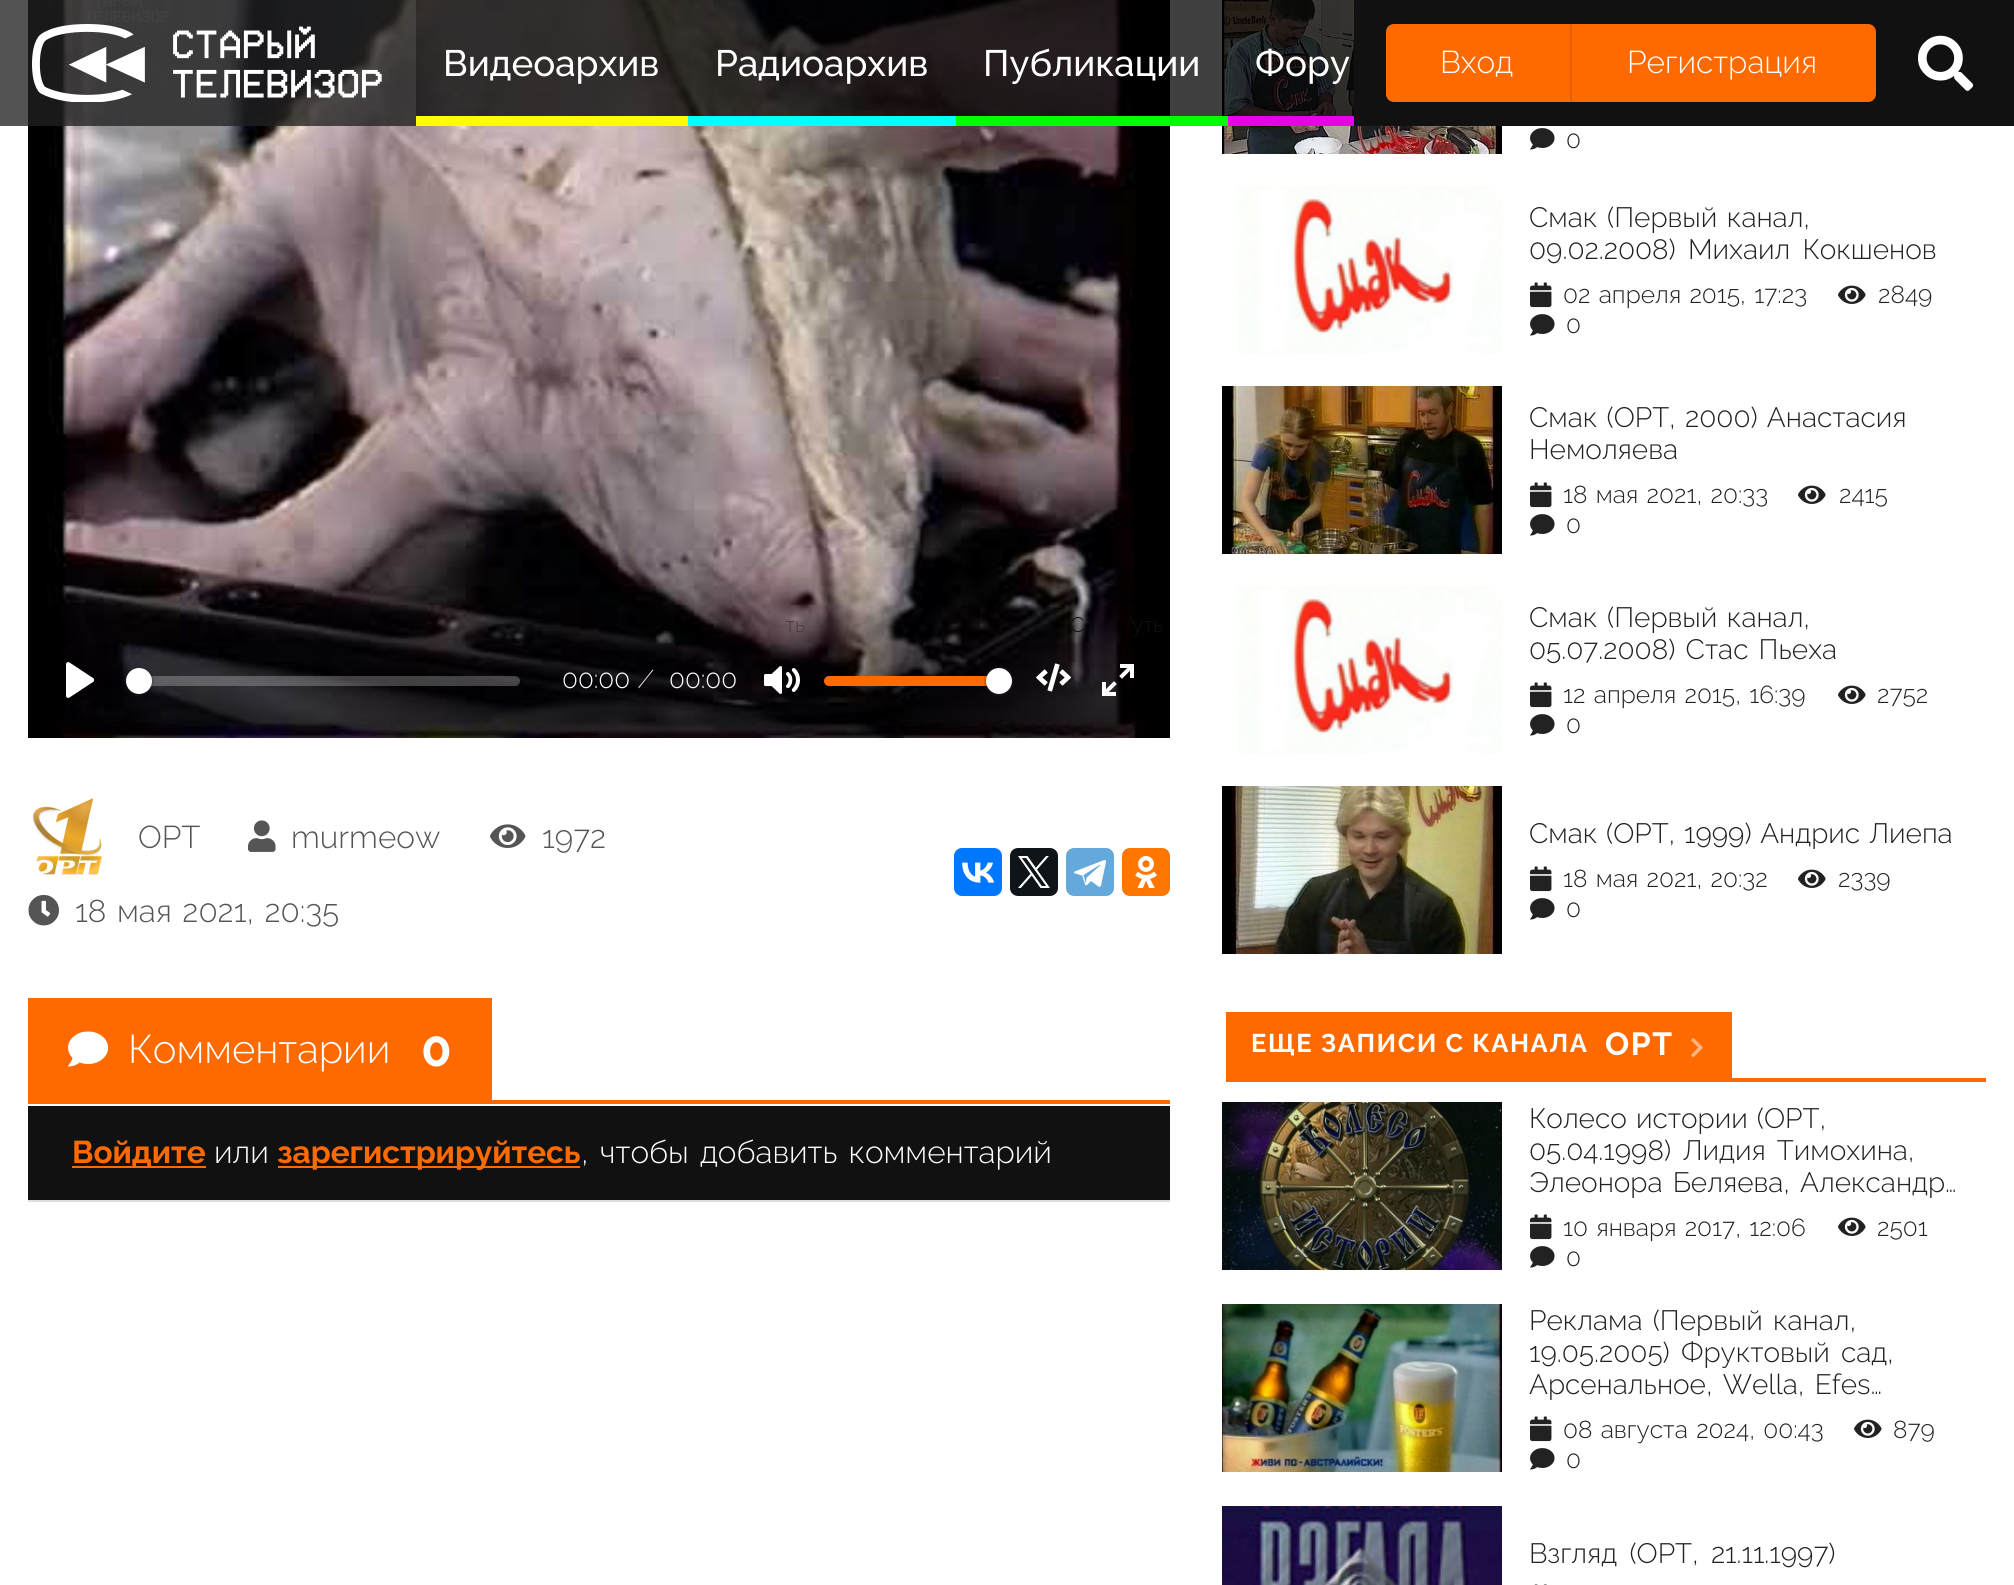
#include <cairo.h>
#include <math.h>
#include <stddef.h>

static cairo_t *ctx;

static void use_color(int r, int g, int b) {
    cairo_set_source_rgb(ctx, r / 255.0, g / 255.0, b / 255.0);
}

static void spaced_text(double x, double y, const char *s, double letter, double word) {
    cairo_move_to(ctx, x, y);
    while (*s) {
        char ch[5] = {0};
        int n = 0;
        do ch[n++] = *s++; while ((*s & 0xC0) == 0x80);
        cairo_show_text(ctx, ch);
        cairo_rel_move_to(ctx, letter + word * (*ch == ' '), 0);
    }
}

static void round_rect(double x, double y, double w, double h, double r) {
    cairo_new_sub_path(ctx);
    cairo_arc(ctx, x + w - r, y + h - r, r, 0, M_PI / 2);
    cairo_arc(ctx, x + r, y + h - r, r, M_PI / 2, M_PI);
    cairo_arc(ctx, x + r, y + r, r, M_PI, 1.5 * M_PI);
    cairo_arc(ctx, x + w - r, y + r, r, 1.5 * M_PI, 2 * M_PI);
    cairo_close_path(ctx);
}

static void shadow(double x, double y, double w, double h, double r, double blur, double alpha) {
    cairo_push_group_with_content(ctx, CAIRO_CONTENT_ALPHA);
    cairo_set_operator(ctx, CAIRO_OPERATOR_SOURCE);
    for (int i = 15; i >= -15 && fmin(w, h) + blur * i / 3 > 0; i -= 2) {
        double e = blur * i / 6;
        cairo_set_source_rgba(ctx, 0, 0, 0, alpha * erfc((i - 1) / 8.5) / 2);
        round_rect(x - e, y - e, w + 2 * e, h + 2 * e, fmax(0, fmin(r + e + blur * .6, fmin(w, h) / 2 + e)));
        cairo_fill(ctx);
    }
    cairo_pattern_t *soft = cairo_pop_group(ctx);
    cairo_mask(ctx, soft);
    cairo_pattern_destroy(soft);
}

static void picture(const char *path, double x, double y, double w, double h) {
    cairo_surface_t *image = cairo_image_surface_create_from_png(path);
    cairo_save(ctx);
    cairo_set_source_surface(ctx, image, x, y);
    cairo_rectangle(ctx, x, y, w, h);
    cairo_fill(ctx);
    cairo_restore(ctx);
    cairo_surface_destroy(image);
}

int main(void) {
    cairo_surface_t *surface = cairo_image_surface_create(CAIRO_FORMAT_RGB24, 2014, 1585);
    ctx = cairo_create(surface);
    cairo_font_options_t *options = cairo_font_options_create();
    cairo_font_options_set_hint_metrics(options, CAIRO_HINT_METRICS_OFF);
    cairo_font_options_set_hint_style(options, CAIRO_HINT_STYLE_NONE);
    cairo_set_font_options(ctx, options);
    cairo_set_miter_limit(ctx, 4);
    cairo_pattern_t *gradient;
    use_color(255, 255, 255);
    cairo_paint(ctx);
    use_color(0, 0, 0);
    cairo_rectangle(ctx, 28, 0, 1142, 738);
    cairo_fill(ctx);
    picture("img3.png", 47, 0, 1104, 738);
    picture("img4.png", 84, 0, 85, 22);
    picture("img17.png", 1222, 0, 280, 154);
    cairo_set_source_rgba(ctx, 0, 0, 0, 0.75);
    cairo_rectangle(ctx, 0, 0, 1354, 126);
    cairo_fill(ctx);
    cairo_set_source_rgba(ctx, 1, 1, 1, 0.1);
    cairo_rectangle(ctx, 0, 0, 416, 126);
    cairo_fill(ctx);
    picture("img1.png", 32, 24, 350, 78);
    cairo_select_font_face(ctx, "Raleway Medium", CAIRO_FONT_SLANT_NORMAL, CAIRO_FONT_WEIGHT_NORMAL);
    cairo_set_font_size(ctx, 36.75);
    use_color(255, 255, 255);
    cairo_move_to(ctx, 443, 76);
    cairo_show_text(ctx, "Видеоархив");
    use_color(255, 253, 0);
    cairo_rectangle(ctx, 416, 116, 272, 10);
    cairo_fill(ctx);
    use_color(255, 255, 255);
    cairo_move_to(ctx, 715, 76);
    cairo_show_text(ctx, "Радиоархив");
    use_color(0, 255, 253);
    cairo_rectangle(ctx, 688, 116, 268, 10);
    cairo_fill(ctx);
    use_color(255, 255, 255);
    cairo_move_to(ctx, 983, 76);
    cairo_show_text(ctx, "Публикации");
    use_color(0, 255, 0);
    cairo_rectangle(ctx, 956, 116, 272, 10);
    cairo_fill(ctx);
    use_color(255, 255, 255);
    cairo_move_to(ctx, 1255, 76);
    cairo_show_text(ctx, "Фору");
    use_color(231, 2, 232);
    cairo_rectangle(ctx, 1228, 116, 126, 10);
    cairo_fill(ctx);
    use_color(17, 17, 17);
    cairo_rectangle(ctx, 1354, 0, 660, 126);
    cairo_fill(ctx);
    use_color(255, 106, 0);
    cairo_new_path(ctx);
    cairo_move_to(ctx, 1394, 24);
    cairo_line_to(ctx, 1572, 24);
    cairo_line_to(ctx, 1572, 102);
    cairo_line_to(ctx, 1394, 102);
    cairo_curve_to(ctx, 1389.5, 102, 1386, 98.5, 1386, 94);
    cairo_line_to(ctx, 1386, 32);
    cairo_curve_to(ctx, 1386, 27.5, 1389.5, 24, 1394, 24);
    cairo_close_path(ctx);
    cairo_fill(ctx);
    use_color(230, 95, 0);
    cairo_rectangle(ctx, 1570, 24, 2, 78);
    cairo_fill(ctx);
    cairo_select_font_face(ctx, "Raleway Light", CAIRO_FONT_SLANT_NORMAL, CAIRO_FONT_WEIGHT_NORMAL);
    cairo_set_font_size(ctx, 31.5);
    use_color(255, 255, 255);
    cairo_move_to(ctx, 1440, 73);
    cairo_show_text(ctx, "Вход");
    use_color(255, 106, 0);
    cairo_new_path(ctx);
    cairo_move_to(ctx, 1572, 24);
    cairo_line_to(ctx, 1868, 24);
    cairo_curve_to(ctx, 1872.5, 24, 1876, 27.5, 1876, 32);
    cairo_line_to(ctx, 1876, 94);
    cairo_curve_to(ctx, 1876, 98.5, 1872.5, 102, 1868, 102);
    cairo_line_to(ctx, 1572, 102);
    cairo_close_path(ctx);
    cairo_fill(ctx);
    use_color(255, 255, 255);
    cairo_move_to(ctx, 1627, 73);
    cairo_show_text(ctx, "Регистрация");
    picture("img2.png", 1918, 35, 56, 56);
    gradient = cairo_pattern_create_linear(599, 572, 599, 738);
    cairo_pattern_add_color_stop_rgba(gradient, 0, 0, 0, 0, 0);
    cairo_pattern_add_color_stop_rgba(gradient, 1, 0, 0, 0, 0.75);
    cairo_set_source(ctx, gradient);
    cairo_pattern_destroy(gradient);
    cairo_rectangle(ctx, 47, 577, 1104, 161);
    cairo_fill(ctx);
    use_color(255, 255, 255);
    cairo_new_path(ctx);
    cairo_move_to(ctx, 93, 678);
    cairo_line_to(ctx, 69.5, 662.5);
    cairo_curve_to(ctx, 68, 661.5, 66, 662.5, 66, 664);
    cairo_line_to(ctx, 66, 696);
    cairo_curve_to(ctx, 66, 697.5, 68, 698.5, 69.5, 697.5);
    cairo_line_to(ctx, 93, 682);
    cairo_curve_to(ctx, 94.5, 681, 94.5, 679, 93, 678);
    cairo_close_path(ctx);
    cairo_fill(ctx);
    cairo_set_font_size(ctx, 21);
    use_color(75, 58, 63);
    spaced_text(785, 632, "ть", 0, 3);
    picture("img5.png", 764, 666, 36, 28);
    use_color(18, 15, 18);
    cairo_move_to(ctx, 1070, 632);
    cairo_show_text(ctx, "С");
    cairo_move_to(ctx, 1132, 632);
    cairo_show_text(ctx, "уть");
    picture("img6.png", 1102, 664, 32, 32);
    cairo_set_source_rgba(ctx, 1, 1, 1, 0.25);
    round_rect(126, 676, 394, 10, 5);
    cairo_fill(ctx);
    cairo_arc(ctx, 139, 681, 14, 0, 2 * M_PI);
    cairo_set_source_rgba(ctx, 0.137, 0.157, 0.184, 0.2);
    cairo_stroke(ctx);
    use_color(255, 255, 255);
    cairo_arc(ctx, 139, 681, 13, 0, 2 * M_PI);
    cairo_fill(ctx);
    cairo_set_font_size(ctx, 26);
    cairo_move_to(ctx, 562, 688);
    cairo_show_text(ctx, "00:00");
    cairo_move_to(ctx, 644, 688);
    cairo_show_text(ctx, "⁄");
    cairo_move_to(ctx, 669, 688);
    cairo_show_text(ctx, "00:00");
    use_color(255, 106, 0);
    round_rect(824, 676, 188, 10, 5);
    cairo_fill(ctx);
    cairo_arc(ctx, 999, 681, 14, 0, 2 * M_PI);
    cairo_set_source_rgba(ctx, 0.137, 0.157, 0.184, 0.2);
    cairo_stroke(ctx);
    use_color(35, 40, 47);
    shadow(986, 670, 26, 26, 13, 1, 0.15);
    use_color(255, 255, 255);
    cairo_arc(ctx, 999, 681, 13, 0, 2 * M_PI);
    cairo_fill(ctx);
    picture("img7.png", 1036, 663, 35, 29);
    picture("img8.png", 32, 798, 70, 77);
    cairo_set_font_size(ctx, 31.5);
    use_color(85, 85, 85);
    cairo_move_to(ctx, 138, 848);
    cairo_show_text(ctx, "ОРТ");
    picture("img9.png", 248, 820, 28, 32);
    cairo_move_to(ctx, 291, 848);
    cairo_show_text(ctx, "murmeow");
    picture("img10.png", 490, 824, 36, 24);
    cairo_move_to(ctx, 542, 848);
    cairo_show_text(ctx, "1972");
    picture("img11.png", 28, 894, 31, 32);
    spaced_text(75, 922, "18 мая 2021, 20:35", 0, 2.5);
    use_color(0, 119, 255);
    round_rect(954, 848, 48, 48, 8);
    cairo_fill(ctx);
    picture("img12.png", 962, 862, 33, 21);
    use_color(15, 20, 25);
    round_rect(1010, 848, 48, 48, 8);
    cairo_fill(ctx);
    picture("img13.png", 1018, 856, 32, 32);
    use_color(100, 169, 220);
    round_rect(1066, 848, 48, 48, 8);
    cairo_fill(ctx);
    picture("img14.png", 1074, 860, 32, 27);
    use_color(255, 119, 0);
    round_rect(1122, 848, 48, 48, 8);
    cairo_fill(ctx);
    picture("img15.png", 1135, 856, 22, 32);
    use_color(255, 106, 0);
    cairo_rectangle(ctx, 28, 1100, 1142, 4);
    cairo_fill(ctx);
    cairo_rectangle(ctx, 28, 998, 464, 102);
    cairo_fill(ctx);
    picture("img16.png", 68, 1031, 41, 36);
    cairo_set_font_size(ctx, 40);
    use_color(255, 255, 255);
    cairo_move_to(ctx, 128, 1063);
    cairo_show_text(ctx, "Комментарии");
    cairo_select_font_face(ctx, "Raleway", CAIRO_FONT_SLANT_NORMAL, CAIRO_FONT_WEIGHT_BOLD);
    cairo_set_font_size(ctx, 50);
    cairo_move_to(ctx, 421, 1066);
    cairo_show_text(ctx, "0");
    use_color(221, 221, 221);
    cairo_rectangle(ctx, 28, 1200, 1142, 2);
    cairo_fill(ctx);
    use_color(17, 17, 17);
    cairo_rectangle(ctx, 28, 1106, 1142, 94);
    cairo_fill(ctx);
    use_color(255, 106, 0);
    cairo_rectangle(ctx, 72, 1166, 134, 2);
    cairo_fill(ctx);
    cairo_set_font_size(ctx, 31.5);
    cairo_move_to(ctx, 72, 1163);
    cairo_show_text(ctx, "Войдите");
    cairo_select_font_face(ctx, "Raleway Light", CAIRO_FONT_SLANT_NORMAL, CAIRO_FONT_WEIGHT_NORMAL);
    use_color(255, 255, 255);
    cairo_move_to(ctx, 214, 1163);
    cairo_show_text(ctx, "или");
    use_color(255, 106, 0);
    cairo_rectangle(ctx, 278, 1166, 302, 2);
    cairo_fill(ctx);
    cairo_select_font_face(ctx, "Raleway", CAIRO_FONT_SLANT_NORMAL, CAIRO_FONT_WEIGHT_BOLD);
    cairo_move_to(ctx, 277, 1163);
    cairo_show_text(ctx, "зарегистрируйтесь");
    cairo_select_font_face(ctx, "Raleway Light", CAIRO_FONT_SLANT_NORMAL, CAIRO_FONT_WEIGHT_NORMAL);
    use_color(255, 255, 255);
    spaced_text(581, 1163, ", чтобы добавить комментарий", 0, 3);
    picture("img18.png", 1530, 128, 25, 22);
    cairo_set_font_size(ctx, 24.5);
    use_color(34, 34, 34);
    cairo_move_to(ctx, 1566, 148);
    cairo_show_text(ctx, "0");
    picture("img19.png", 1237, 186, 265, 168);
    cairo_set_font_size(ctx, 28);
    spaced_text(1529, 227, "Смак (Первый канал,", 0, 2.5);
    spaced_text(1529, 259, "09.02.2008) Михаил Кокшенов", 0, 5);
    picture("img20.png", 1530, 282, 22, 26);
    cairo_set_font_size(ctx, 24.5);
    spaced_text(1563, 303, "02 апреля 2015, 17:23", 0, 2);
    picture("img21.png", 1838, 285, 28, 19);
    cairo_move_to(ctx, 1878, 303);
    cairo_show_text(ctx, "2849");
    picture("img18.png", 1530, 314, 25, 22);
    cairo_move_to(ctx, 1566, 333);
    cairo_show_text(ctx, "0");
    picture("img22.png", 1222, 386, 280, 168);
    cairo_set_font_size(ctx, 28);
    spaced_text(1529, 427, "Смак (ОРТ, 2000) Анастасия", 0, 2);
    cairo_move_to(ctx, 1529, 459);
    cairo_show_text(ctx, "Немоляева");
    picture("img20.png", 1530, 482, 22, 26);
    cairo_set_font_size(ctx, 24.5);
    spaced_text(1563, 503, "18 мая 2021, 20:33", 0, 2);
    picture("img21.png", 1798, 485, 28, 19);
    cairo_move_to(ctx, 1839, 503);
    cairo_show_text(ctx, "2415");
    picture("img18.png", 1530, 514, 25, 22);
    cairo_move_to(ctx, 1566, 533);
    cairo_show_text(ctx, "0");
    picture("img23.png", 1237, 586, 265, 168);
    cairo_set_font_size(ctx, 28);
    spaced_text(1529, 627, "Смак (Первый канал,", 0, 2.5);
    spaced_text(1529, 659, "05.07.2008) Стас Пьеха", 0, 3);
    picture("img20.png", 1530, 682, 22, 26);
    cairo_set_font_size(ctx, 24.5);
    spaced_text(1563, 703, "12 апреля 2015, 16:39", 0, 2);
    picture("img21.png", 1838, 685, 28, 19);
    cairo_move_to(ctx, 1877, 703);
    cairo_show_text(ctx, "2752");
    picture("img18.png", 1530, 714, 25, 22);
    cairo_move_to(ctx, 1566, 733);
    cairo_show_text(ctx, "0");
    picture("img24.png", 1222, 786, 280, 168);
    cairo_set_font_size(ctx, 28);
    spaced_text(1529, 843, "Смак (ОРТ, 1999) Андрис Лиепа", 0, 1.5);
    picture("img20.png", 1530, 866, 22, 26);
    cairo_set_font_size(ctx, 24.5);
    spaced_text(1563, 887, "18 мая 2021, 20:32", 0, 2);
    picture("img21.png", 1798, 869, 28, 19);
    cairo_move_to(ctx, 1838, 887);
    cairo_show_text(ctx, "2339");
    picture("img18.png", 1530, 898, 25, 22);
    cairo_move_to(ctx, 1566, 917);
    cairo_show_text(ctx, "0");
    use_color(255, 106, 0);
    cairo_rectangle(ctx, 1226, 1078, 760, 4);
    cairo_fill(ctx);
    cairo_rectangle(ctx, 1226, 1012, 506, 66);
    cairo_fill(ctx);
    cairo_select_font_face(ctx, "Raleway", CAIRO_FONT_SLANT_NORMAL, CAIRO_FONT_WEIGHT_BOLD);
    cairo_set_font_size(ctx, 25.6);
    use_color(255, 255, 255);
    spaced_text(1251, 1052, "ЕЩЕ ЗАПИСИ С КАНАЛА", 1.5, 0);
    cairo_set_font_size(ctx, 32);
    spaced_text(1605, 1055, "ОРТ", 1.5, 0);
    picture("img25.png", 1691, 1038, 12, 20);
    picture("img26.png", 1222, 1102, 280, 168);
    cairo_select_font_face(ctx, "Raleway Light", CAIRO_FONT_SLANT_NORMAL, CAIRO_FONT_WEIGHT_NORMAL);
    cairo_set_font_size(ctx, 28);
    use_color(34, 34, 34);
    spaced_text(1529, 1128, "Колесо истории (ОРТ,", 0, 2);
    spaced_text(1529, 1160, "05.04.1998) Лидия Тимохина,", 0, 4);
    spaced_text(1529, 1192, "Элеонора Беляева, Александр…", 0, 3);
    picture("img20.png", 1530, 1214, 22, 26);
    cairo_set_font_size(ctx, 24.5);
    spaced_text(1563, 1236, "10 января 2017, 12:06", 0, 2);
    picture("img21.png", 1838, 1217, 28, 19);
    cairo_move_to(ctx, 1877, 1236);
    cairo_show_text(ctx, "2501");
    picture("img18.png", 1530, 1246, 25, 22);
    cairo_move_to(ctx, 1566, 1266);
    cairo_show_text(ctx, "0");
    picture("img27.png", 1222, 1304, 280, 168);
    cairo_set_font_size(ctx, 28);
    spaced_text(1529, 1330, "Реклама (Первый канал,", 0, 3);
    spaced_text(1529, 1362, "19.05.2005) Фруктовый сад,", 0, 4);
    spaced_text(1529, 1394, "Арсенальное, Wella, Efes…", 0, 3);
    picture("img20.png", 1530, 1416, 22, 26);
    cairo_set_font_size(ctx, 24.5);
    spaced_text(1563, 1438, "08 августа 2024, 00:43", 0, 2);
    picture("img21.png", 1854, 1419, 28, 19);
    cairo_move_to(ctx, 1893, 1438);
    cairo_show_text(ctx, "879");
    picture("img18.png", 1530, 1448, 25, 22);
    cairo_move_to(ctx, 1566, 1468);
    cairo_show_text(ctx, "0");
    picture("img28.png", 1222, 1506, 280, 79);
    cairo_set_font_size(ctx, 28);
    spaced_text(1529, 1563, "Взгляд (ОРТ, 21.11.1997)", 0, 5);
    picture("img29.png", 1534, 1584, 13, 1);
    cairo_surface_write_to_png(surface, "result.png");
    cairo_font_options_destroy(options);
    cairo_destroy(ctx);
    cairo_surface_destroy(surface);
    return 0;
}
